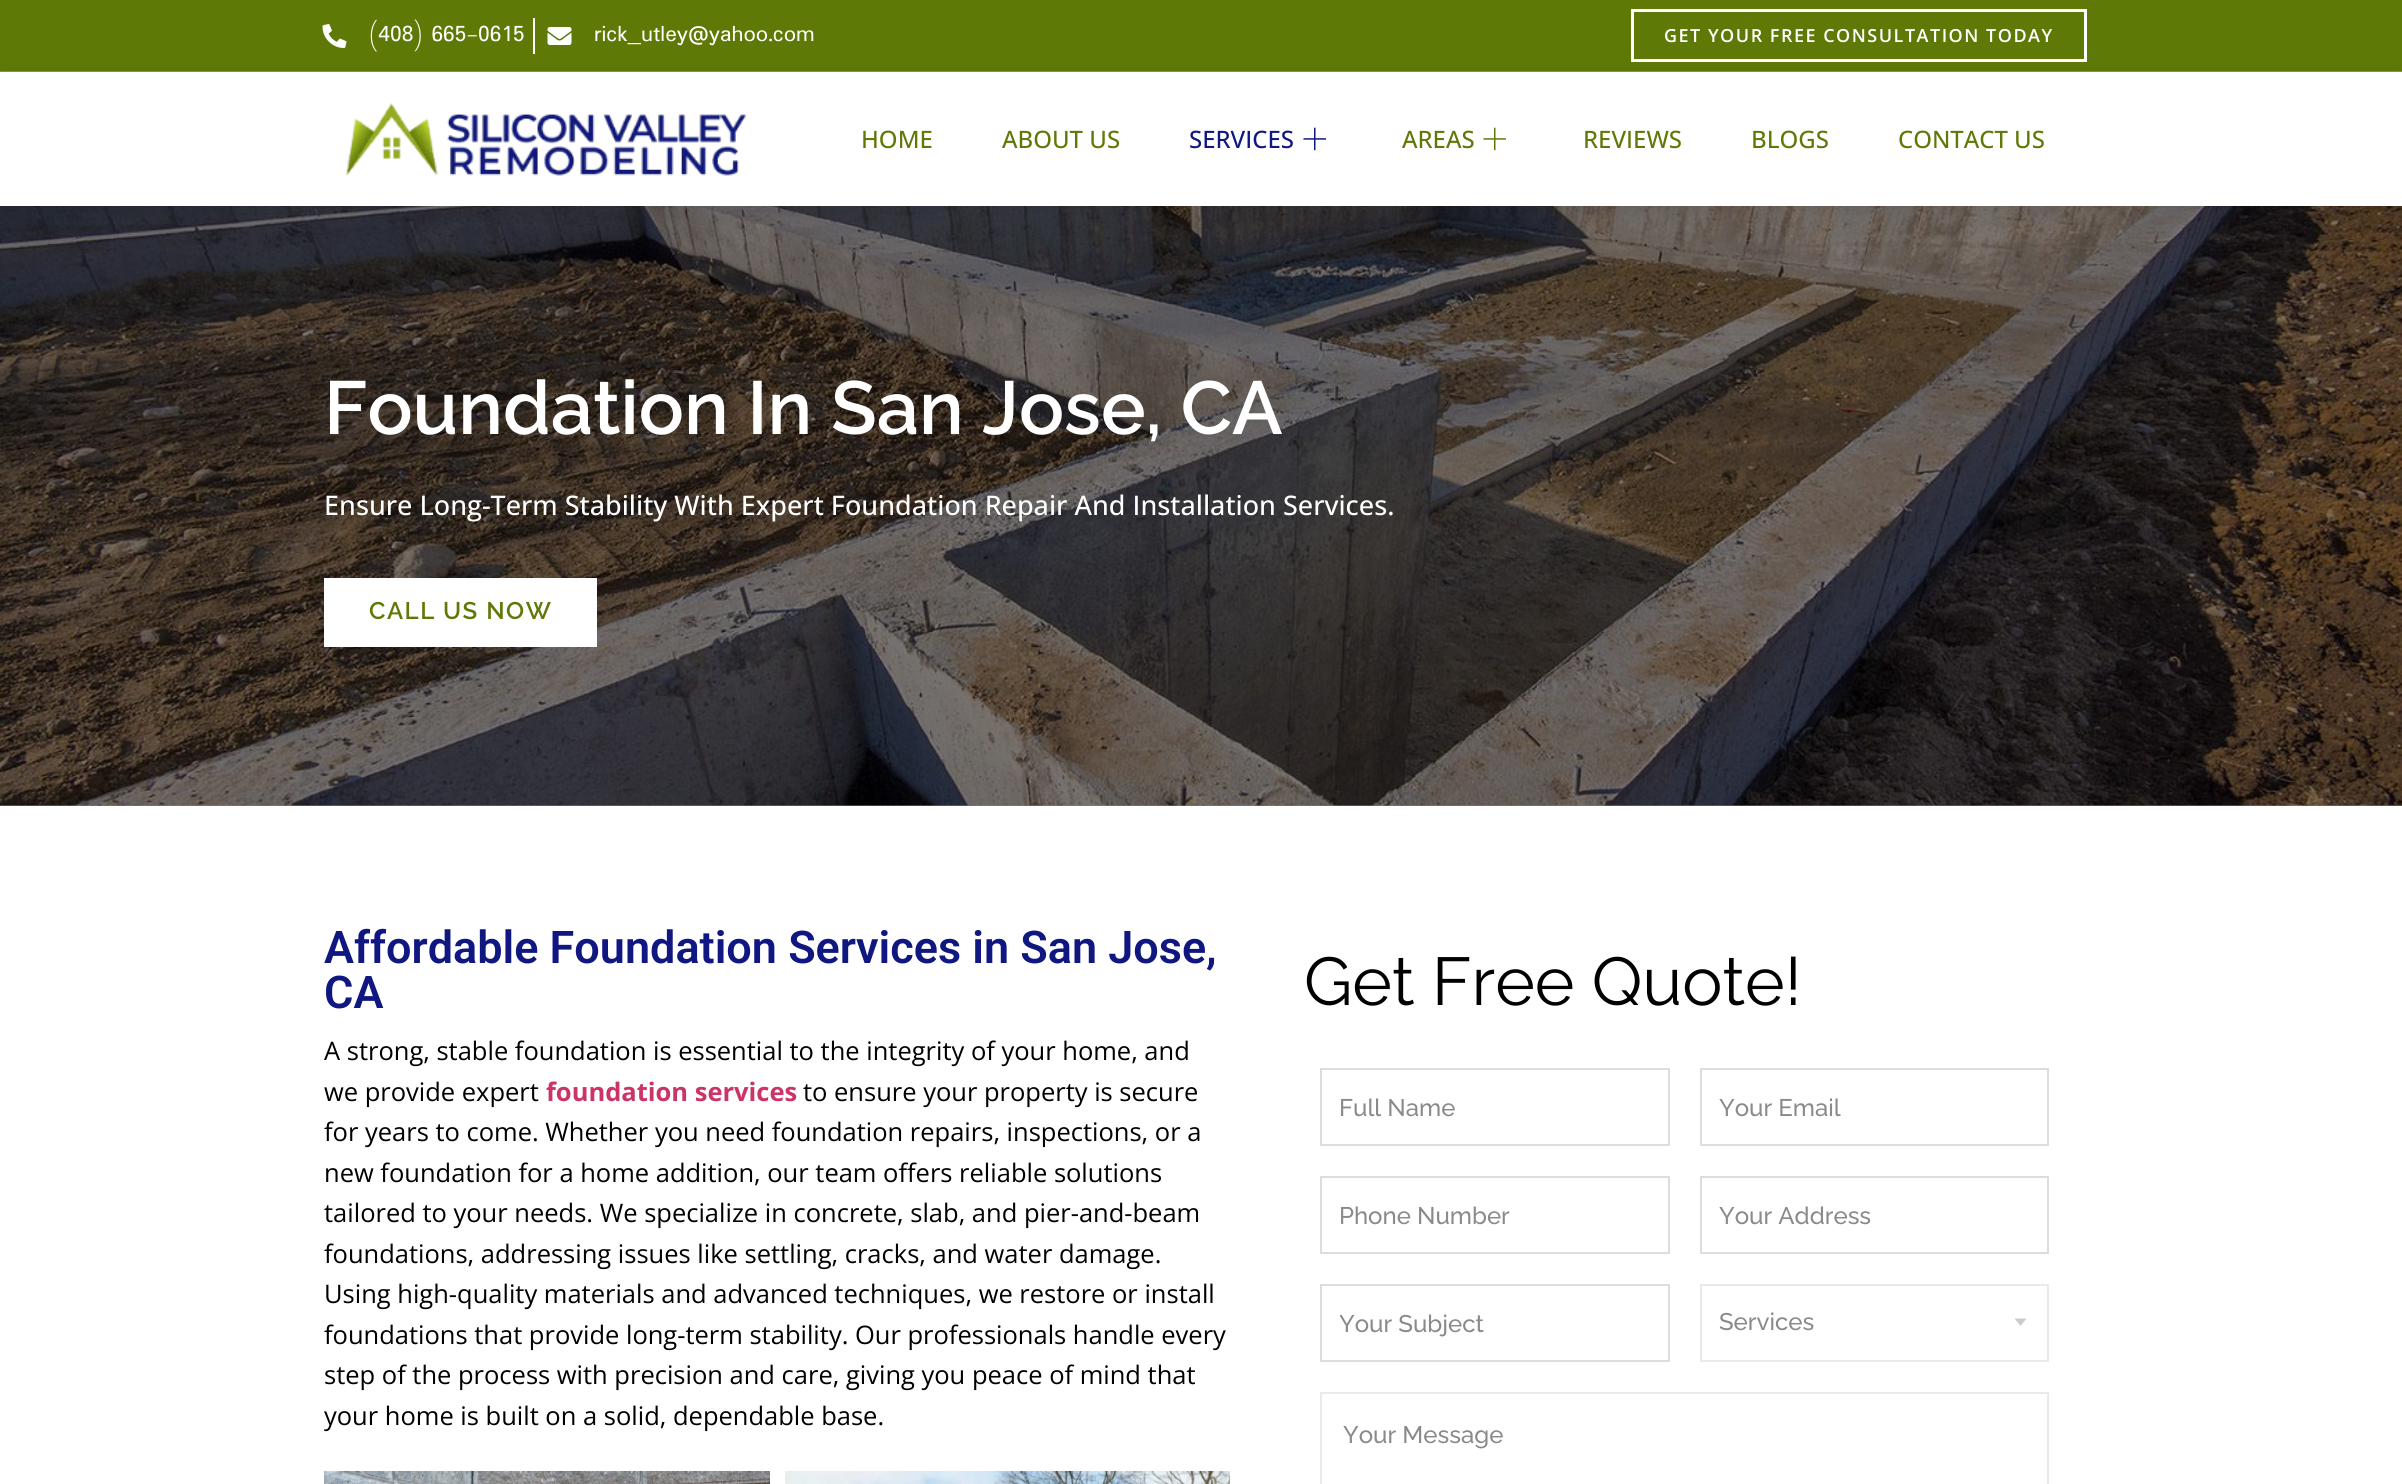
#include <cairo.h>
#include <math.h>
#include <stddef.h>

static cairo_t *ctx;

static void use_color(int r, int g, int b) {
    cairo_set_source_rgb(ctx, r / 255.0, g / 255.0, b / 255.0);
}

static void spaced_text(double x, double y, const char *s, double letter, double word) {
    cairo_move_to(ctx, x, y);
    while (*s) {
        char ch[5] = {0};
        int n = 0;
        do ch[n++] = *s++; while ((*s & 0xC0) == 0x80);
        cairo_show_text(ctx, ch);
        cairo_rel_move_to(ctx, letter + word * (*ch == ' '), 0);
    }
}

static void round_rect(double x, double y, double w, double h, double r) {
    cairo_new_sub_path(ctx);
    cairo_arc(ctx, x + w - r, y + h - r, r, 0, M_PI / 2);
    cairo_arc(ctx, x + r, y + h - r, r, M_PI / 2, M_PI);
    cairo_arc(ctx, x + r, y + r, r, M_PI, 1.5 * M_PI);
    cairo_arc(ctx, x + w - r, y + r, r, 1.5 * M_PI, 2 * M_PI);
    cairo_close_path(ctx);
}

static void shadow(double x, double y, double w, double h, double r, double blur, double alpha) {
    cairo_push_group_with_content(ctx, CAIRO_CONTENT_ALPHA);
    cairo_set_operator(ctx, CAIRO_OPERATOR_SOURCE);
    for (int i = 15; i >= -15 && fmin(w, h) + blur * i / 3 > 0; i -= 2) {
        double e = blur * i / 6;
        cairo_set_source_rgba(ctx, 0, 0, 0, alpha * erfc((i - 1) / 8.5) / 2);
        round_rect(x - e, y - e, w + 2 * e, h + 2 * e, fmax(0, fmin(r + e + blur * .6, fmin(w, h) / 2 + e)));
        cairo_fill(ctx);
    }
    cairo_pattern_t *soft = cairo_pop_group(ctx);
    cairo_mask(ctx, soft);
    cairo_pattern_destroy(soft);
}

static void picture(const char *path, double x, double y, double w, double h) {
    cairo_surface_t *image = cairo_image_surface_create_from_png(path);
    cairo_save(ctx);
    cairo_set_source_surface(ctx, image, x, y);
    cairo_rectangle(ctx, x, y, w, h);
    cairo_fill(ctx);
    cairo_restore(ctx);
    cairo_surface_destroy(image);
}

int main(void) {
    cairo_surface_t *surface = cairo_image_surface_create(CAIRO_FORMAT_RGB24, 2402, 1484);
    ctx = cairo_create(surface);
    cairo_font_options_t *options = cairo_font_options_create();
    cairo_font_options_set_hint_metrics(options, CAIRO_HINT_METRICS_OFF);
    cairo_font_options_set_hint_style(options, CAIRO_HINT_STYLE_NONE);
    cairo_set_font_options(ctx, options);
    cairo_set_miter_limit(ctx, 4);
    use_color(255, 255, 255);
    cairo_paint(ctx);
    use_color(128, 128, 128);
    cairo_rectangle(ctx, 0, 805, 2402, 1);
    cairo_fill(ctx);
    use_color(95, 121, 7);
    cairo_rectangle(ctx, 0, 0, 2402, 71);
    cairo_fill(ctx);
    use_color(132, 152, 64);
    cairo_rectangle(ctx, 0, 71, 2402, 1);
    cairo_fill(ctx);
    picture("img1.png", 322, 24, 25, 24);
    cairo_select_font_face(ctx, "Padauk", CAIRO_FONT_SLANT_NORMAL, CAIRO_FONT_WEIGHT_NORMAL);
    cairo_set_font_size(ctx, 24);
    use_color(255, 255, 255);
    cairo_move_to(ctx, 369, 41);
    cairo_show_text(ctx, "(408) 665-0615");
    cairo_rectangle(ctx, 533, 18, 2, 36);
    cairo_fill(ctx);
    picture("img2.png", 547, 27, 25, 18);
    cairo_move_to(ctx, 594, 41);
    cairo_show_text(ctx, "rick_utley@yahoo.com");
    cairo_rectangle(ctx, 1632.5, 10.5, 453, 50);
    cairo_set_line_width(ctx, 3);
    cairo_stroke(ctx);
    cairo_select_font_face(ctx, "Open Sans SemiBold", CAIRO_FONT_SLANT_NORMAL, CAIRO_FONT_WEIGHT_NORMAL);
    cairo_set_font_size(ctx, 18);
    spaced_text(1664, 42, "GET YOUR FREE CONSULTATION TODAY", 1.5, 0);
    picture("img6.png", 0, 206, 2402, 600);
    use_color(0, 0, 0);
    shadow(0, 77, 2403, 133, 0, 10, 0.1);
    use_color(255, 255, 255);
    cairo_rectangle(ctx, 0, 72, 2402, 134);
    cairo_fill(ctx);
    picture("img3.png", 346, 103, 401, 73);
    cairo_select_font_face(ctx, "Open Sans Medium", CAIRO_FONT_SLANT_NORMAL, CAIRO_FONT_WEIGHT_NORMAL);
    cairo_set_font_size(ctx, 24);
    use_color(95, 121, 7);
    cairo_move_to(ctx, 861, 148);
    cairo_show_text(ctx, "HOME");
    cairo_move_to(ctx, 1002, 148);
    cairo_show_text(ctx, "ABOUT US");
    use_color(16, 23, 129);
    cairo_move_to(ctx, 1189, 148);
    cairo_show_text(ctx, "SERVICES");
    picture("img4.png", 1303, 127, 23, 24);
    use_color(95, 121, 7);
    cairo_move_to(ctx, 1402, 148);
    cairo_show_text(ctx, "AREAS");
    picture("img5.png", 1483, 127, 23, 24);
    cairo_move_to(ctx, 1583, 148);
    cairo_show_text(ctx, "REVIEWS");
    cairo_move_to(ctx, 1751, 148);
    cairo_show_text(ctx, "BLOGS");
    cairo_move_to(ctx, 1898, 148);
    cairo_show_text(ctx, "CONTACT US");
    cairo_select_font_face(ctx, "Raleway SemiBold", CAIRO_FONT_SLANT_NORMAL, CAIRO_FONT_WEIGHT_NORMAL);
    cairo_set_font_size(ctx, 75);
    use_color(255, 255, 255);
    cairo_move_to(ctx, 324, 434);
    cairo_show_text(ctx, "Foundation In San Jose, CA");
    cairo_select_font_face(ctx, "Open Sans Medium", CAIRO_FONT_SLANT_NORMAL, CAIRO_FONT_WEIGHT_NORMAL);
    cairo_set_font_size(ctx, 27);
    cairo_move_to(ctx, 324, 515);
    cairo_show_text(ctx, "Ensure Long-Term Stability With Expert Foundation Repair And Installation Services.");
    cairo_rectangle(ctx, 324, 578, 273, 69);
    cairo_fill(ctx);
    cairo_select_font_face(ctx, "Raleway SemiBold", CAIRO_FONT_SLANT_NORMAL, CAIRO_FONT_WEIGHT_NORMAL);
    cairo_set_font_size(ctx, 24);
    use_color(95, 121, 7);
    spaced_text(369, 619, "CALL US NOW", 1.5, 0);
    cairo_select_font_face(ctx, "Roboto SemiBold", CAIRO_FONT_SLANT_NORMAL, CAIRO_FONT_WEIGHT_NORMAL);
    cairo_set_font_size(ctx, 45);
    use_color(16, 23, 129);
    cairo_move_to(ctx, 324, 963);
    cairo_show_text(ctx, "Affordable Foundation Services in San Jose,");
    cairo_move_to(ctx, 324, 1008);
    cairo_show_text(ctx, "CA");
    cairo_select_font_face(ctx, "Open Sans", CAIRO_FONT_SLANT_NORMAL, CAIRO_FONT_WEIGHT_NORMAL);
    cairo_set_font_size(ctx, 25.5);
    use_color(0, 0, 0);
    cairo_move_to(ctx, 324, 1060);
    cairo_show_text(ctx, "A strong, stable foundation is essential to the integrity of your home, and");
    cairo_move_to(ctx, 324, 1101);
    cairo_show_text(ctx, "we provide expert");
    cairo_select_font_face(ctx, "Open Sans", CAIRO_FONT_SLANT_NORMAL, CAIRO_FONT_WEIGHT_BOLD);
    use_color(204, 51, 102);
    cairo_move_to(ctx, 546, 1101);
    cairo_show_text(ctx, "foundation services");
    cairo_select_font_face(ctx, "Open Sans", CAIRO_FONT_SLANT_NORMAL, CAIRO_FONT_WEIGHT_NORMAL);
    use_color(0, 0, 0);
    cairo_move_to(ctx, 803, 1101);
    cairo_show_text(ctx, "to ensure your property is secure");
    cairo_move_to(ctx, 324, 1141);
    cairo_show_text(ctx, "for years to come. Whether you need foundation repairs, inspections, or a");
    cairo_move_to(ctx, 324, 1182);
    cairo_show_text(ctx, "new foundation for a home addition, our team offers reliable solutions");
    cairo_move_to(ctx, 324, 1222);
    cairo_show_text(ctx, "tailored to your needs. We specialize in concrete, slab, and pier-and-beam");
    cairo_move_to(ctx, 324, 1263);
    cairo_show_text(ctx, "foundations, addressing issues like settling, cracks, and water damage.");
    cairo_move_to(ctx, 324, 1303);
    cairo_show_text(ctx, "Using high-quality materials and advanced techniques, we restore or install");
    cairo_move_to(ctx, 324, 1344);
    cairo_show_text(ctx, "foundations that provide long-term stability. Our professionals handle every");
    cairo_move_to(ctx, 324, 1384);
    cairo_show_text(ctx, "step of the process with precision and care, giving you peace of mind that");
    cairo_move_to(ctx, 324, 1425);
    cairo_show_text(ctx, "your home is built on a solid, dependable base.");
    picture("img7.png", 324, 1471, 446, 13);
    picture("img8.png", 785, 1471, 445, 13);
    cairo_select_font_face(ctx, "Raleway", CAIRO_FONT_SLANT_NORMAL, CAIRO_FONT_WEIGHT_NORMAL);
    cairo_set_font_size(ctx, 67.5);
    cairo_move_to(ctx, 1304, 1005);
    cairo_show_text(ctx, "Get Free Quote!");
    cairo_rectangle(ctx, 1321, 1069, 348, 76);
    use_color(221, 221, 221);
    cairo_set_line_width(ctx, 2);
    cairo_stroke(ctx);
    cairo_select_font_face(ctx, "Raleway Medium", CAIRO_FONT_SLANT_NORMAL, CAIRO_FONT_WEIGHT_NORMAL);
    cairo_set_font_size(ctx, 24);
    use_color(138, 138, 138);
    cairo_move_to(ctx, 1339, 1116);
    cairo_show_text(ctx, "Full Name");
    cairo_rectangle(ctx, 1701, 1069, 347, 76);
    use_color(221, 221, 221);
    cairo_stroke(ctx);
    use_color(138, 138, 138);
    cairo_move_to(ctx, 1719, 1116);
    cairo_show_text(ctx, "Your Email");
    cairo_rectangle(ctx, 1321, 1177, 348, 76);
    use_color(221, 221, 221);
    cairo_stroke(ctx);
    use_color(138, 138, 138);
    cairo_move_to(ctx, 1339, 1224);
    cairo_show_text(ctx, "Phone Number");
    cairo_rectangle(ctx, 1701, 1177, 347, 76);
    use_color(221, 221, 221);
    cairo_stroke(ctx);
    use_color(138, 138, 138);
    cairo_move_to(ctx, 1719, 1224);
    cairo_show_text(ctx, "Your Address");
    cairo_rectangle(ctx, 1321, 1285, 348, 76);
    use_color(221, 221, 221);
    cairo_stroke(ctx);
    cairo_save(ctx);
    cairo_rectangle(ctx, 1340, 1310, 310, 28);
    cairo_clip(ctx);
    use_color(138, 138, 138);
    cairo_move_to(ctx, 1339, 1332);
    cairo_show_text(ctx, "Your Subject");
    cairo_restore(ctx);
    cairo_rectangle(ctx, 1701, 1285, 347, 76);
    use_color(234, 234, 234);
    cairo_stroke(ctx);
    use_color(138, 138, 138);
    cairo_move_to(ctx, 1719, 1330);
    cairo_show_text(ctx, "Services");
    use_color(204, 204, 204);
    cairo_new_path(ctx);
    cairo_move_to(ctx, 2014.5, 1318.5);
    cairo_line_to(ctx, 2026.5, 1318.5);
    cairo_line_to(ctx, 2020.5, 1326);
    cairo_close_path(ctx);
    cairo_fill(ctx);
    cairo_rectangle(ctx, 1321, 1393, 727, 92);
    use_color(234, 234, 234);
    cairo_stroke(ctx);
    use_color(138, 138, 138);
    cairo_move_to(ctx, 1343, 1443);
    cairo_show_text(ctx, "Your Message");
    cairo_surface_write_to_png(surface, "result.png");
    cairo_font_options_destroy(options);
    cairo_destroy(ctx);
    cairo_surface_destroy(surface);
    return 0;
}
